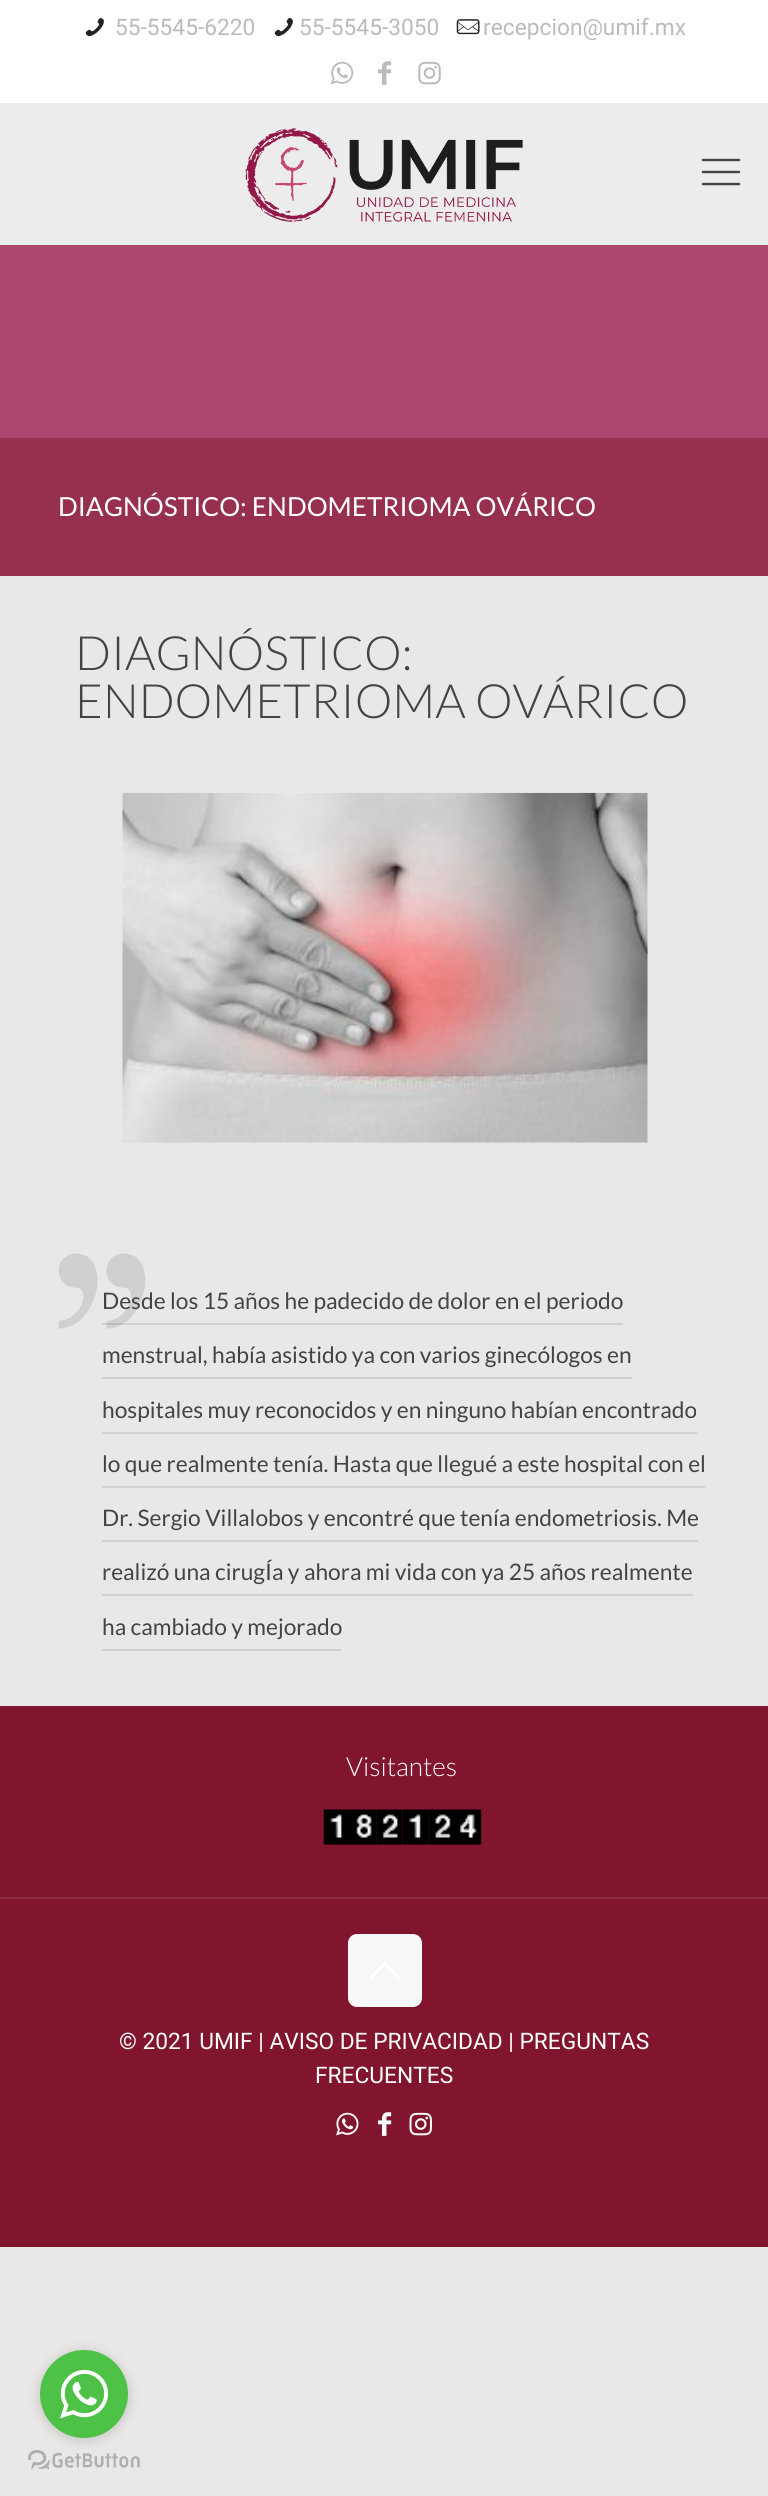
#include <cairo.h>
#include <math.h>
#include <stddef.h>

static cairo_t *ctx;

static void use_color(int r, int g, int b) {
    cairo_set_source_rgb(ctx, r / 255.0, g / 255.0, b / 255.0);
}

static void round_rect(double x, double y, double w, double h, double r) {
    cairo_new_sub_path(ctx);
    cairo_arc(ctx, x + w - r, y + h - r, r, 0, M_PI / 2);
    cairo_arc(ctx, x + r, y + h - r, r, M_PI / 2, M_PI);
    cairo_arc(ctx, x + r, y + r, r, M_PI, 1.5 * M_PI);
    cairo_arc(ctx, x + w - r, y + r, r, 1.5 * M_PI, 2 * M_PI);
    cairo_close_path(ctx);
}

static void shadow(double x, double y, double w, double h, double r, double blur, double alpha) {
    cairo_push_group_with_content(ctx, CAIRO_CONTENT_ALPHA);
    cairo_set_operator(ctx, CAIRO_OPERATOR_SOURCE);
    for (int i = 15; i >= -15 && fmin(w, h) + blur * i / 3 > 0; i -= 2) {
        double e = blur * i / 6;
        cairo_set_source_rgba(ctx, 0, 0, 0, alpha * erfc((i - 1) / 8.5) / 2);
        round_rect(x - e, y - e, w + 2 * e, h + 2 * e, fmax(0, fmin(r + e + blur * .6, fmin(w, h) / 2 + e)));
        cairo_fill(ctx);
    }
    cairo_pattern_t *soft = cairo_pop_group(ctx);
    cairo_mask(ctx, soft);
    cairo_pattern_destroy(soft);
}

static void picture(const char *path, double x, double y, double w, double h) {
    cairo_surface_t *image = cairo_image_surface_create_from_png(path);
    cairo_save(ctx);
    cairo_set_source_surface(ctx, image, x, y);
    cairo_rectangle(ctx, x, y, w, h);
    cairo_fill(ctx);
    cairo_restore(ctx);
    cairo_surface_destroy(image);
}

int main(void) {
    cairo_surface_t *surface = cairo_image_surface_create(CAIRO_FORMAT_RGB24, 768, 2496);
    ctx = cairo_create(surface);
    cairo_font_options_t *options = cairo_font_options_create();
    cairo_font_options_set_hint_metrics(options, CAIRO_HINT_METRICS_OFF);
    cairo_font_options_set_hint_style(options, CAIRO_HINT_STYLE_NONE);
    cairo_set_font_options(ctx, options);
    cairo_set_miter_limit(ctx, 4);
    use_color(233, 232, 230);
    cairo_paint(ctx);
    use_color(172, 72, 110);
    cairo_rectangle(ctx, 0, 245, 768, 193);
    cairo_fill(ctx);
    use_color(255, 255, 255);
    cairo_rectangle(ctx, 0, 0, 768, 103);
    cairo_fill(ctx);
    picture("img1.png", 85, 17, 19, 20);
    cairo_select_font_face(ctx, "Roboto", CAIRO_FONT_SLANT_NORMAL, CAIRO_FONT_WEIGHT_NORMAL);
    cairo_set_font_size(ctx, 22.75);
    use_color(187, 187, 187);
    cairo_move_to(ctx, 115, 35);
    cairo_show_text(ctx, "55-5545-6220");
    picture("img1.png", 274, 17, 19, 20);
    cairo_move_to(ctx, 299, 35);
    cairo_show_text(ctx, "55-5545-3050");
    picture("img2.png", 456, 19, 24, 16);
    cairo_move_to(ctx, 483, 35);
    cairo_show_text(ctx, "recepcion@umif.mx");
    picture("img3.png", 330, 61, 24, 24);
    picture("img4.png", 378, 61, 14, 24);
    picture("img5.png", 418, 61, 23, 24);
    use_color(236, 236, 236);
    cairo_rectangle(ctx, 0, 103, 768, 142);
    cairo_fill(ctx);
    picture("img6.png", 245, 128, 278, 94);
    picture("img7.png", 701, 158, 40, 28);
    use_color(151, 47, 78);
    cairo_rectangle(ctx, 0, 438, 768, 138);
    cairo_fill(ctx);
    cairo_select_font_face(ctx, "Lato", CAIRO_FONT_SLANT_NORMAL, CAIRO_FONT_WEIGHT_NORMAL);
    cairo_set_font_size(ctx, 26.25);
    use_color(255, 255, 255);
    cairo_move_to(ctx, 58, 516);
    cairo_show_text(ctx, "DIAGNÓSTICO: ENDOMETRIOMA OVÁRICO");
    cairo_select_font_face(ctx, "Lato Light", CAIRO_FONT_SLANT_NORMAL, CAIRO_FONT_WEIGHT_NORMAL);
    cairo_set_font_size(ctx, 47.25);
    use_color(68, 68, 68);
    cairo_move_to(ctx, 75, 670);
    cairo_show_text(ctx, "DIAGNÓSTICO:");
    cairo_move_to(ctx, 75, 718);
    cairo_show_text(ctx, "ENDOMETRIOMA OVÁRICO");
    picture("img8.png", 122, 792, 526, 351);
    picture("img9.png", 58, 1253, 88, 76);
    cairo_select_font_face(ctx, "Lato", CAIRO_FONT_SLANT_NORMAL, CAIRO_FONT_WEIGHT_NORMAL);
    cairo_set_font_size(ctx, 22.75);
    cairo_move_to(ctx, 102, 1309);
    cairo_show_text(ctx, "Desde los 15 años he padecido de dolor en el periodo");
    cairo_set_source_rgba(ctx, 0, 0, 0, 0.1);
    cairo_rectangle(ctx, 102, 1323, 521, 2);
    cairo_fill(ctx);
    use_color(68, 68, 68);
    cairo_move_to(ctx, 102, 1363);
    cairo_show_text(ctx, "menstrual, había asistido ya con varios ginecólogos en");
    use_color(210, 209, 207);
    cairo_rectangle(ctx, 102, 1377, 530, 2);
    cairo_fill(ctx);
    use_color(68, 68, 68);
    cairo_move_to(ctx, 102, 1418);
    cairo_show_text(ctx, "hospitales muy reconocidos y en ninguno habían encontrado");
    use_color(210, 209, 207);
    cairo_rectangle(ctx, 102, 1432, 595, 2);
    cairo_fill(ctx);
    use_color(68, 68, 68);
    cairo_move_to(ctx, 102, 1472);
    cairo_show_text(ctx, "lo que realmente tenía. Hasta que llegué a este hospital con el");
    use_color(210, 209, 207);
    cairo_rectangle(ctx, 102, 1486, 603, 2);
    cairo_fill(ctx);
    use_color(68, 68, 68);
    cairo_move_to(ctx, 102, 1526);
    cairo_show_text(ctx, "Dr. Sergio Villalobos y encontré que tenía endometriosis. Me");
    use_color(210, 209, 207);
    cairo_rectangle(ctx, 102, 1540, 596, 2);
    cairo_fill(ctx);
    use_color(68, 68, 68);
    cairo_move_to(ctx, 102, 1580);
    cairo_show_text(ctx, "realizó una cirugÍa y ahora mi vida con ya 25 años realmente");
    use_color(210, 209, 207);
    cairo_rectangle(ctx, 102, 1594, 591, 2);
    cairo_fill(ctx);
    use_color(68, 68, 68);
    cairo_move_to(ctx, 102, 1635);
    cairo_show_text(ctx, "ha cambiado y mejorado");
    use_color(210, 209, 207);
    cairo_rectangle(ctx, 102, 1649, 239, 2);
    cairo_fill(ctx);
    use_color(129, 21, 46);
    cairo_rectangle(ctx, 0, 1706, 768, 541);
    cairo_fill(ctx);
    cairo_select_font_face(ctx, "Lato Light", CAIRO_FONT_SLANT_NORMAL, CAIRO_FONT_WEIGHT_NORMAL);
    cairo_set_font_size(ctx, 26.25);
    use_color(255, 255, 255);
    cairo_move_to(ctx, 346, 1776);
    cairo_show_text(ctx, "Visitantes");
    picture("img10.png", 323, 1809, 27, 36);
    picture("img11.png", 350, 1809, 27, 36);
    picture("img12.png", 376, 1809, 27, 36);
    picture("img13.png", 402, 1809, 27, 36);
    picture("img14.png", 428, 1809, 27, 36);
    picture("img15.png", 455, 1809, 27, 36);
    use_color(142, 44, 67);
    cairo_rectangle(ctx, 0, 1897, 768, 2);
    cairo_fill(ctx);
    use_color(247, 247, 247);
    round_rect(348, 1934, 74, 73, 9);
    cairo_fill(ctx);
    picture("img16.png", 369, 1962, 30, 17);
    cairo_select_font_face(ctx, "Roboto", CAIRO_FONT_SLANT_NORMAL, CAIRO_FONT_WEIGHT_NORMAL);
    cairo_set_font_size(ctx, 22.75);
    use_color(255, 255, 255);
    cairo_move_to(ctx, 119, 2049);
    cairo_show_text(ctx, "© 2021 UMIF | AVISO DE PRIVACIDAD | PREGUNTAS");
    cairo_move_to(ctx, 315, 2083);
    cairo_show_text(ctx, "FRECUENTES");
    picture("img17.png", 336, 2112, 23, 24);
    picture("img18.png", 378, 2112, 14, 24);
    picture("img19.png", 409, 2112, 23, 24);
    picture("img21.png", 28, 2450, 112, 19);
    use_color(136, 136, 136);
    shadow(40, 2352, 88, 88, 44, 6, 0.4);
    use_color(77, 194, 71);
    cairo_arc(ctx, 84, 2394, 44, 0, 2 * M_PI);
    cairo_fill(ctx);
    picture("img20.png", 60, 2369, 49, 50);
    cairo_surface_write_to_png(surface, "result.png");
    cairo_font_options_destroy(options);
    cairo_destroy(ctx);
    cairo_surface_destroy(surface);
    return 0;
}
